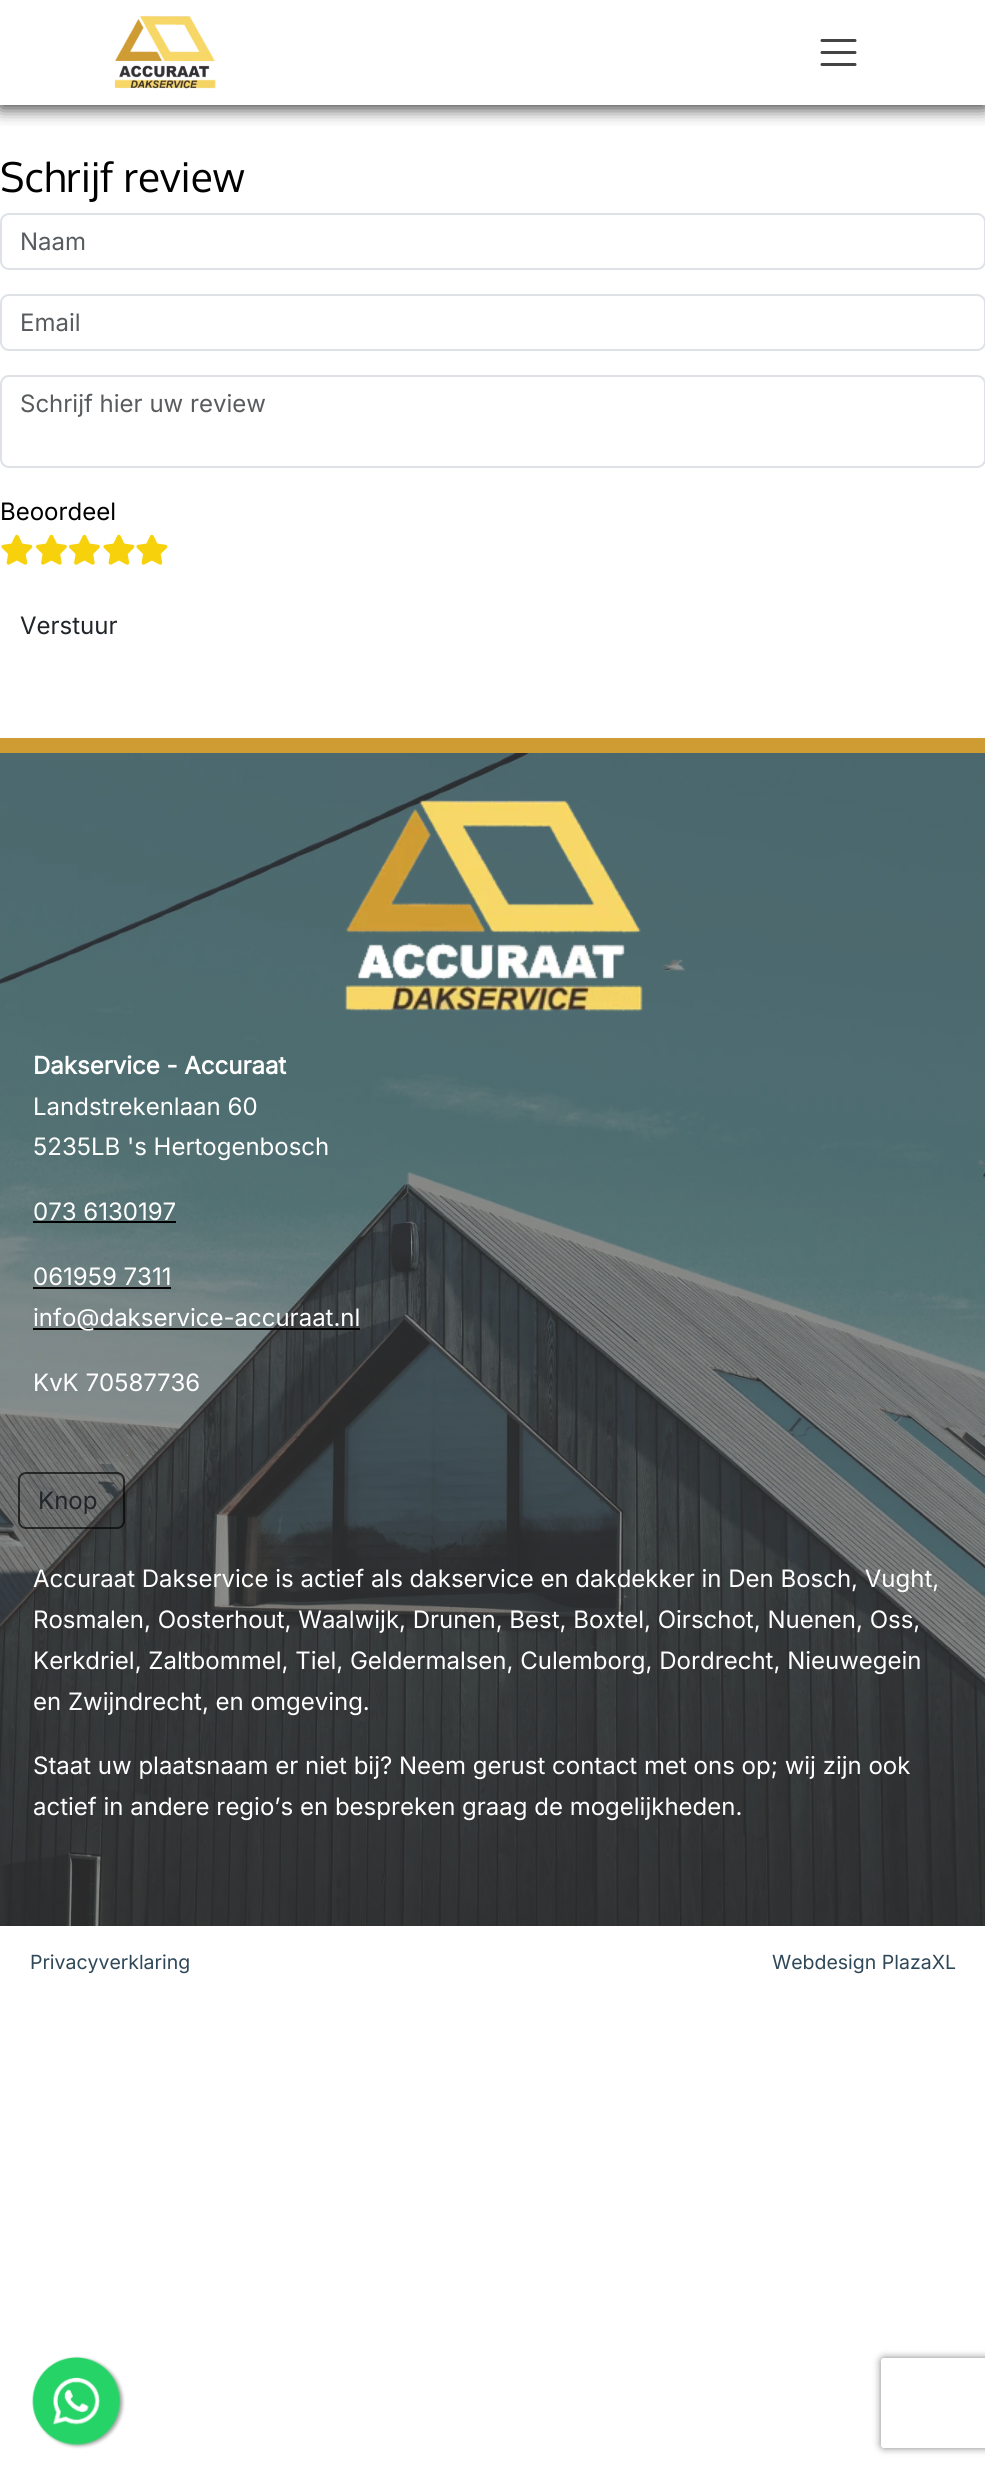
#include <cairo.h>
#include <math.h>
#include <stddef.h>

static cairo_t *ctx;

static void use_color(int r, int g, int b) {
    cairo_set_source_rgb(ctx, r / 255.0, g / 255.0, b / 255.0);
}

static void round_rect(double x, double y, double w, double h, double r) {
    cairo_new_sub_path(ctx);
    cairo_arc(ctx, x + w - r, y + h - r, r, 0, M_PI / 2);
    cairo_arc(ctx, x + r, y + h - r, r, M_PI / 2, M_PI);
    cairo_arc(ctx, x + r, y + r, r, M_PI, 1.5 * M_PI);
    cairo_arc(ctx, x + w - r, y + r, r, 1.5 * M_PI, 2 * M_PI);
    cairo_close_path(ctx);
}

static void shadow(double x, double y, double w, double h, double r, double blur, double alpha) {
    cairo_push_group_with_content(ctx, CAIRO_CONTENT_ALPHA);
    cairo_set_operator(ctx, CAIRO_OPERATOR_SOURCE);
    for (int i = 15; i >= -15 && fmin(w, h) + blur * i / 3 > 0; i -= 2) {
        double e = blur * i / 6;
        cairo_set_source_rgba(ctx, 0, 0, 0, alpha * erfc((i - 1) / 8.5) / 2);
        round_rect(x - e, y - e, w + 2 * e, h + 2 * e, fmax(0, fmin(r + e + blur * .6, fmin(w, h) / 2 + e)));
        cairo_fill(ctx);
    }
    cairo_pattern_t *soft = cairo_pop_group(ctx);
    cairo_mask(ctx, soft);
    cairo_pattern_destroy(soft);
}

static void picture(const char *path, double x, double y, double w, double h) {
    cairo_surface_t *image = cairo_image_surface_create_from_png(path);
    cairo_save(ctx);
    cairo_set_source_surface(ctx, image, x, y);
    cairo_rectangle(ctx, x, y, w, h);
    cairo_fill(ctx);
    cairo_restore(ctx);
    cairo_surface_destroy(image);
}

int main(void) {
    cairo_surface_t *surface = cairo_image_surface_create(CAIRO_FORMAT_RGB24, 985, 2469);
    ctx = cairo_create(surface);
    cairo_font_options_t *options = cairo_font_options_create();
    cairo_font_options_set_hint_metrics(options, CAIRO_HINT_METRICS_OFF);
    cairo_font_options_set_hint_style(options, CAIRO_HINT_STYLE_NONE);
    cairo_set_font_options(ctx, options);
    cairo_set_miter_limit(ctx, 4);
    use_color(255, 255, 255);
    cairo_paint(ctx);
    cairo_save(ctx);
    cairo_rectangle(ctx, 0, 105, 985, 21);
    cairo_clip(ctx);
    use_color(0, 0, 0);
    shadow(0, 3, 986, 105, 0, 9, 0.8);
    cairo_restore(ctx);
    picture("img1.png", 114, 15, 102, 74);
    cairo_new_path(ctx);
    cairo_move_to(ctx, 822, 40.5);
    cairo_line_to(ctx, 855, 40.5);
    cairo_move_to(ctx, 822, 52.5);
    cairo_line_to(ctx, 855, 52.5);
    cairo_move_to(ctx, 822, 64.5);
    cairo_line_to(ctx, 855, 64.5);
    use_color(67, 67, 67);
    cairo_set_line_width(ctx, 3);
    cairo_set_line_cap(ctx, CAIRO_LINE_CAP_ROUND);
    cairo_stroke(ctx);
    cairo_select_font_face(ctx, "Oxygen", CAIRO_FONT_SLANT_NORMAL, CAIRO_FONT_WEIGHT_NORMAL);
    cairo_set_font_size(ctx, 40.75);
    use_color(0, 0, 0);
    cairo_move_to(ctx, 0, 192);
    cairo_show_text(ctx, "Schrijf review");
    round_rect(1, 214, 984, 55, 8);
    use_color(222, 226, 230);
    cairo_set_line_width(ctx, 2);
    cairo_set_line_cap(ctx, CAIRO_LINE_CAP_BUTT);
    cairo_stroke(ctx);
    cairo_select_font_face(ctx, "Inter", CAIRO_FONT_SLANT_NORMAL, CAIRO_FONT_WEIGHT_NORMAL);
    cairo_set_font_size(ctx, 24);
    use_color(89, 92, 95);
    cairo_move_to(ctx, 20, 250);
    cairo_show_text(ctx, "Naam");
    round_rect(1, 295, 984, 55, 8);
    use_color(222, 226, 230);
    cairo_stroke(ctx);
    use_color(89, 92, 95);
    cairo_move_to(ctx, 20, 331);
    cairo_show_text(ctx, "Email");
    round_rect(1, 376, 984, 91, 8);
    use_color(222, 226, 230);
    cairo_stroke(ctx);
    use_color(89, 92, 95);
    cairo_move_to(ctx, 20, 412);
    cairo_show_text(ctx, "Schrijf hier uw review");
    use_color(0, 0, 0);
    cairo_move_to(ctx, 0, 520);
    cairo_show_text(ctx, "Beoordeel");
    picture("img2.png", 1, 534, 32, 31);
    picture("img3.png", 36, 534, 31, 31);
    picture("img3.png", 69, 534, 31, 31);
    picture("img2.png", 103, 534, 32, 31);
    picture("img2.png", 136, 534, 32, 31);
    use_color(33, 37, 41);
    cairo_move_to(ctx, 20, 634);
    cairo_show_text(ctx, "Verstuur");
    use_color(207, 156, 51);
    cairo_rectangle(ctx, 0, 738, 985, 15);
    cairo_fill(ctx);
    picture("img4.png", 0, 753, 985, 1173);
    picture("img5.png", 344, 799, 299, 213);
    cairo_select_font_face(ctx, "Inter", CAIRO_FONT_SLANT_NORMAL, CAIRO_FONT_WEIGHT_BOLD);
    use_color(255, 255, 255);
    cairo_move_to(ctx, 33, 1074);
    cairo_show_text(ctx, "Dakservice - Accuraat");
    cairo_select_font_face(ctx, "Inter", CAIRO_FONT_SLANT_NORMAL, CAIRO_FONT_WEIGHT_NORMAL);
    cairo_move_to(ctx, 33, 1115);
    cairo_show_text(ctx, "Landstrekenlaan 60");
    cairo_move_to(ctx, 33, 1155);
    cairo_show_text(ctx, "5235LB 's Hertogenbosch");
    cairo_move_to(ctx, 33, 1220);
    cairo_show_text(ctx, "073 6130197");
    use_color(0, 0, 0);
    cairo_rectangle(ctx, 33, 1221, 143, 2);
    cairo_fill(ctx);
    use_color(255, 255, 255);
    cairo_move_to(ctx, 33, 1285);
    cairo_show_text(ctx, "061959 7311");
    use_color(0, 0, 0);
    cairo_rectangle(ctx, 33, 1287, 138, 2);
    cairo_fill(ctx);
    cairo_rectangle(ctx, 33, 1328, 327, 2);
    cairo_fill(ctx);
    use_color(255, 255, 255);
    cairo_move_to(ctx, 33, 1326);
    cairo_show_text(ctx, "info@dakservice-accuraat.nl");
    cairo_move_to(ctx, 33, 1391);
    cairo_show_text(ctx, "KvK 70587736");
    round_rect(19, 1473, 105, 55, 7);
    cairo_set_source_rgba(ctx, 0, 0, 0, 0.65);
    cairo_stroke(ctx);
    use_color(33, 37, 41);
    cairo_move_to(ctx, 38, 1509);
    cairo_show_text(ctx, "Knop");
    use_color(255, 255, 255);
    cairo_move_to(ctx, 33, 1587);
    cairo_show_text(ctx, "Accuraat Dakservice is actief als dakservice en dakdekker in Den Bosch, Vught,");
    cairo_move_to(ctx, 33, 1628);
    cairo_show_text(ctx, "Rosmalen, Oosterhout, Waalwijk, Drunen, Best, Boxtel, Oirschot, Nuenen, Oss,");
    cairo_move_to(ctx, 33, 1669);
    cairo_show_text(ctx, "Kerkdriel, Zaltbommel, Tiel, Geldermalsen, Culemborg, Dordrecht, Nieuwegein");
    cairo_move_to(ctx, 33, 1710);
    cairo_show_text(ctx, "en Zwijndrecht, en omgeving.");
    cairo_move_to(ctx, 33, 1774);
    cairo_show_text(ctx, "Staat uw plaatsnaam er niet bij? Neem gerust contact met ons op; wij zijn ook");
    cairo_move_to(ctx, 33, 1815);
    cairo_show_text(ctx, "actief in andere regio’s en bespreken graag de mogelijkheden.");
    picture("img6.png", 32, 2356, 93, 93);
    cairo_set_font_size(ctx, 19.5);
    use_color(47, 72, 88);
    cairo_move_to(ctx, 30, 1969);
    cairo_show_text(ctx, "Privacyverklaring");
    cairo_move_to(ctx, 772, 1969);
    cairo_show_text(ctx, "Webdesign PlazaXL");
    cairo_save(ctx);
    cairo_set_fill_rule(ctx, CAIRO_FILL_RULE_EVEN_ODD);
    cairo_new_path(ctx);
    cairo_move_to(ctx, 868, 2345);
    cairo_line_to(ctx, 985, 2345);
    cairo_line_to(ctx, 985, 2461);
    cairo_line_to(ctx, 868, 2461);
    cairo_close_path(ctx);
    cairo_move_to(ctx, 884, 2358);
    cairo_line_to(ctx, 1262, 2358);
    cairo_curve_to(ctx, 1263.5, 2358, 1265, 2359.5, 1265, 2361);
    cairo_line_to(ctx, 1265, 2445);
    cairo_curve_to(ctx, 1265, 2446.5, 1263.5, 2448, 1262, 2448);
    cairo_line_to(ctx, 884, 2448);
    cairo_curve_to(ctx, 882.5, 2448, 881, 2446.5, 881, 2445);
    cairo_line_to(ctx, 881, 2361);
    cairo_curve_to(ctx, 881, 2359.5, 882.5, 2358, 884, 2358);
    cairo_close_path(ctx);
    cairo_clip(ctx);
    use_color(128, 128, 128);
    shadow(881, 2358, 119, 90, 3, 4, 1);
    cairo_restore(ctx);
    cairo_surface_write_to_png(surface, "result.png");
    cairo_font_options_destroy(options);
    cairo_destroy(ctx);
    cairo_surface_destroy(surface);
    return 0;
}
